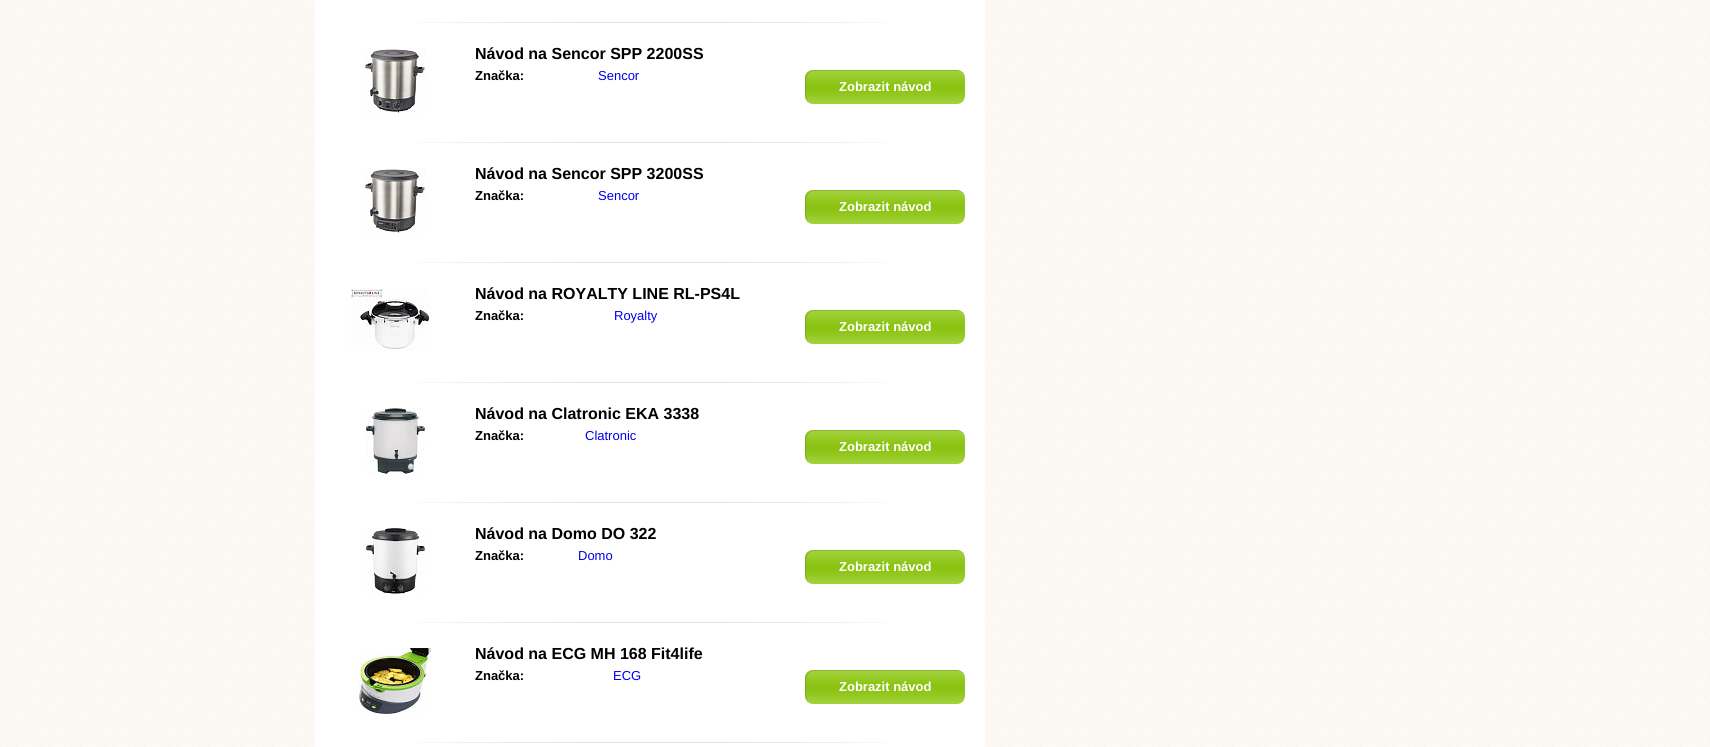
#include <cairo.h>
#include <math.h>
#include <stddef.h>

static cairo_t *ctx;

static void use_color(int r, int g, int b) {
    cairo_set_source_rgb(ctx, r / 255.0, g / 255.0, b / 255.0);
}

static void picture(const char *path, double x, double y, double w, double h) {
    cairo_surface_t *image = cairo_image_surface_create_from_png(path);
    cairo_save(ctx);
    cairo_set_source_surface(ctx, image, x, y);
    cairo_rectangle(ctx, x, y, w, h);
    cairo_fill(ctx);
    cairo_restore(ctx);
    cairo_surface_destroy(image);
}

int main(void) {
    cairo_surface_t *surface = cairo_image_surface_create(CAIRO_FORMAT_RGB24, 1710, 747);
    ctx = cairo_create(surface);
    cairo_font_options_t *options = cairo_font_options_create();
    cairo_font_options_set_hint_metrics(options, CAIRO_HINT_METRICS_OFF);
    cairo_font_options_set_hint_style(options, CAIRO_HINT_STYLE_NONE);
    cairo_set_font_options(ctx, options);
    cairo_set_miter_limit(ctx, 4);
    use_color(255, 255, 255);
    cairo_paint(ctx);
    picture("img1.png", 0, 0, 1710, 747);
    use_color(255, 255, 255);
    cairo_rectangle(ctx, 315, 0, 670, 747);
    cairo_fill(ctx);
    picture("img2.png", 416, 22, 470, 1);
    picture("img2.png", 416, 142, 470, 1);
    picture("img3.png", 362, 48, 64, 66);
    cairo_select_font_face(ctx, "Liberation Sans", CAIRO_FONT_SLANT_NORMAL, CAIRO_FONT_WEIGHT_BOLD);
    cairo_set_font_size(ctx, 16);
    use_color(0, 0, 0);
    cairo_move_to(ctx, 475, 59);
    cairo_show_text(ctx, "Návod na Sencor SPP 2200SS");
    cairo_set_font_size(ctx, 13);
    cairo_move_to(ctx, 475, 80);
    cairo_show_text(ctx, "Značka:");
    cairo_select_font_face(ctx, "Liberation Sans", CAIRO_FONT_SLANT_NORMAL, CAIRO_FONT_WEIGHT_NORMAL);
    use_color(0, 0, 238);
    cairo_move_to(ctx, 598, 80);
    cairo_show_text(ctx, "Sencor");
    picture("img4.png", 805, 70, 160, 34);
    cairo_set_source_rgba(ctx, 0, 0, 0, 0.14);
    cairo_new_path(ctx);
    cairo_move_to(ctx, 814, 71);
    cairo_line_to(ctx, 958, 71);
    cairo_curve_to(ctx, 960, 71, 962, 72, 964, 74);
    cairo_curve_to(ctx, 962, 72, 960, 70, 957, 70);
    cairo_line_to(ctx, 813, 70);
    cairo_curve_to(ctx, 809, 70, 805, 74, 805, 78);
    cairo_line_to(ctx, 805, 96);
    cairo_curve_to(ctx, 805, 99, 807, 101, 809, 103);
    cairo_curve_to(ctx, 805, 99, 806, 93, 806, 88);
    cairo_curve_to(ctx, 806, 82, 805, 71, 814, 71);
    cairo_close_path(ctx);
    cairo_fill(ctx);
    cairo_select_font_face(ctx, "Liberation Sans", CAIRO_FONT_SLANT_NORMAL, CAIRO_FONT_WEIGHT_BOLD);
    use_color(255, 255, 255);
    cairo_move_to(ctx, 839, 91);
    cairo_show_text(ctx, "Zobrazit návod");
    picture("img2.png", 416, 262, 470, 1);
    picture("img5.png", 362, 168, 64, 66);
    cairo_set_font_size(ctx, 16);
    use_color(0, 0, 0);
    cairo_move_to(ctx, 475, 179);
    cairo_show_text(ctx, "Návod na Sencor SPP 3200SS");
    cairo_set_font_size(ctx, 13);
    cairo_move_to(ctx, 475, 200);
    cairo_show_text(ctx, "Značka:");
    cairo_select_font_face(ctx, "Liberation Sans", CAIRO_FONT_SLANT_NORMAL, CAIRO_FONT_WEIGHT_NORMAL);
    use_color(0, 0, 238);
    cairo_move_to(ctx, 598, 200);
    cairo_show_text(ctx, "Sencor");
    picture("img4.png", 805, 190, 160, 34);
    cairo_set_source_rgba(ctx, 0, 0, 0, 0.14);
    cairo_new_path(ctx);
    cairo_move_to(ctx, 814, 191);
    cairo_line_to(ctx, 958, 191);
    cairo_curve_to(ctx, 960, 191, 962, 192, 964, 194);
    cairo_curve_to(ctx, 962, 192, 960, 190, 957, 190);
    cairo_line_to(ctx, 813, 190);
    cairo_curve_to(ctx, 809, 190, 805, 194, 805, 198);
    cairo_line_to(ctx, 805, 216);
    cairo_curve_to(ctx, 805, 219, 807, 221, 809, 223);
    cairo_curve_to(ctx, 805, 219, 806, 213, 806, 208);
    cairo_curve_to(ctx, 806, 202, 805, 191, 814, 191);
    cairo_close_path(ctx);
    cairo_fill(ctx);
    cairo_select_font_face(ctx, "Liberation Sans", CAIRO_FONT_SLANT_NORMAL, CAIRO_FONT_WEIGHT_BOLD);
    use_color(255, 255, 255);
    cairo_move_to(ctx, 839, 211);
    cairo_show_text(ctx, "Zobrazit návod");
    picture("img2.png", 416, 382, 470, 1);
    picture("img6.png", 351, 288, 80, 63);
    cairo_set_font_size(ctx, 16);
    use_color(0, 0, 0);
    cairo_move_to(ctx, 475, 299);
    cairo_show_text(ctx, "Návod na ROYALTY LINE RL-PS4L");
    cairo_set_font_size(ctx, 13);
    cairo_move_to(ctx, 475, 320);
    cairo_show_text(ctx, "Značka:");
    cairo_select_font_face(ctx, "Liberation Sans", CAIRO_FONT_SLANT_NORMAL, CAIRO_FONT_WEIGHT_NORMAL);
    use_color(0, 0, 238);
    cairo_move_to(ctx, 614, 320);
    cairo_show_text(ctx, "Royalty");
    picture("img4.png", 805, 310, 160, 34);
    cairo_set_source_rgba(ctx, 0, 0, 0, 0.14);
    cairo_new_path(ctx);
    cairo_move_to(ctx, 814, 311);
    cairo_line_to(ctx, 958, 311);
    cairo_curve_to(ctx, 960, 311, 962, 312, 964, 314);
    cairo_curve_to(ctx, 962, 312, 960, 310, 957, 310);
    cairo_line_to(ctx, 813, 310);
    cairo_curve_to(ctx, 809, 310, 805, 314, 805, 318);
    cairo_line_to(ctx, 805, 336);
    cairo_curve_to(ctx, 805, 339, 807, 341, 809, 343);
    cairo_curve_to(ctx, 805, 339, 806, 333, 806, 328);
    cairo_curve_to(ctx, 806, 322, 805, 311, 814, 311);
    cairo_close_path(ctx);
    cairo_fill(ctx);
    cairo_select_font_face(ctx, "Liberation Sans", CAIRO_FONT_SLANT_NORMAL, CAIRO_FONT_WEIGHT_BOLD);
    use_color(255, 255, 255);
    cairo_move_to(ctx, 839, 331);
    cairo_show_text(ctx, "Zobrazit návod");
    picture("img2.png", 416, 502, 470, 1);
    picture("img7.png", 366, 408, 59, 66);
    cairo_set_font_size(ctx, 16);
    use_color(0, 0, 0);
    cairo_move_to(ctx, 475, 419);
    cairo_show_text(ctx, "Návod na Clatronic EKA 3338");
    cairo_set_font_size(ctx, 13);
    cairo_move_to(ctx, 475, 440);
    cairo_show_text(ctx, "Značka:");
    cairo_select_font_face(ctx, "Liberation Sans", CAIRO_FONT_SLANT_NORMAL, CAIRO_FONT_WEIGHT_NORMAL);
    use_color(0, 0, 238);
    cairo_move_to(ctx, 585, 440);
    cairo_show_text(ctx, "Clatronic");
    picture("img4.png", 805, 430, 160, 34);
    cairo_set_source_rgba(ctx, 0, 0, 0, 0.14);
    cairo_new_path(ctx);
    cairo_move_to(ctx, 814, 431);
    cairo_line_to(ctx, 958, 431);
    cairo_curve_to(ctx, 960, 431, 962, 432, 964, 434);
    cairo_curve_to(ctx, 962, 432, 960, 430, 957, 430);
    cairo_line_to(ctx, 813, 430);
    cairo_curve_to(ctx, 809, 430, 805, 434, 805, 438);
    cairo_line_to(ctx, 805, 456);
    cairo_curve_to(ctx, 805, 459, 807, 461, 809, 463);
    cairo_curve_to(ctx, 805, 459, 806, 453, 806, 448);
    cairo_curve_to(ctx, 806, 442, 805, 431, 814, 431);
    cairo_close_path(ctx);
    cairo_fill(ctx);
    cairo_select_font_face(ctx, "Liberation Sans", CAIRO_FONT_SLANT_NORMAL, CAIRO_FONT_WEIGHT_BOLD);
    use_color(255, 255, 255);
    cairo_move_to(ctx, 839, 451);
    cairo_show_text(ctx, "Zobrazit návod");
    picture("img2.png", 416, 622, 470, 1);
    picture("img8.png", 362, 528, 64, 66);
    cairo_set_font_size(ctx, 16);
    use_color(0, 0, 0);
    cairo_move_to(ctx, 475, 539);
    cairo_show_text(ctx, "Návod na Domo DO 322");
    cairo_set_font_size(ctx, 13);
    cairo_move_to(ctx, 475, 560);
    cairo_show_text(ctx, "Značka:");
    cairo_select_font_face(ctx, "Liberation Sans", CAIRO_FONT_SLANT_NORMAL, CAIRO_FONT_WEIGHT_NORMAL);
    use_color(0, 0, 238);
    cairo_move_to(ctx, 578, 560);
    cairo_show_text(ctx, "Domo");
    picture("img9.png", 805, 550, 160, 34);
    cairo_set_source_rgba(ctx, 0, 0, 0, 0.14);
    cairo_new_path(ctx);
    cairo_move_to(ctx, 814, 551);
    cairo_line_to(ctx, 958, 551);
    cairo_curve_to(ctx, 960, 551, 962, 552, 964, 554);
    cairo_curve_to(ctx, 962, 552, 960, 550, 957, 550);
    cairo_line_to(ctx, 813, 550);
    cairo_curve_to(ctx, 809, 550, 805, 554, 805, 558);
    cairo_line_to(ctx, 805, 576);
    cairo_curve_to(ctx, 805, 579, 807, 581, 809, 583);
    cairo_curve_to(ctx, 805, 579, 806, 573, 806, 568);
    cairo_curve_to(ctx, 806, 562, 805, 551, 814, 551);
    cairo_close_path(ctx);
    cairo_fill(ctx);
    cairo_select_font_face(ctx, "Liberation Sans", CAIRO_FONT_SLANT_NORMAL, CAIRO_FONT_WEIGHT_BOLD);
    use_color(255, 255, 255);
    cairo_move_to(ctx, 839, 571);
    cairo_show_text(ctx, "Zobrazit návod");
    picture("img2.png", 416, 742, 470, 1);
    picture("img10.png", 359, 648, 72, 66);
    cairo_set_font_size(ctx, 16);
    use_color(0, 0, 0);
    cairo_move_to(ctx, 475, 659);
    cairo_show_text(ctx, "Návod na ECG MH 168 Fit4life");
    cairo_set_font_size(ctx, 13);
    cairo_move_to(ctx, 475, 680);
    cairo_show_text(ctx, "Značka:");
    cairo_select_font_face(ctx, "Liberation Sans", CAIRO_FONT_SLANT_NORMAL, CAIRO_FONT_WEIGHT_NORMAL);
    use_color(0, 0, 238);
    cairo_move_to(ctx, 613, 680);
    cairo_show_text(ctx, "ECG");
    picture("img4.png", 805, 670, 160, 34);
    cairo_set_source_rgba(ctx, 0, 0, 0, 0.14);
    cairo_new_path(ctx);
    cairo_move_to(ctx, 814, 671);
    cairo_line_to(ctx, 958, 671);
    cairo_curve_to(ctx, 960, 671, 962, 672, 964, 674);
    cairo_curve_to(ctx, 962, 672, 960, 670, 957, 670);
    cairo_line_to(ctx, 813, 670);
    cairo_curve_to(ctx, 809, 670, 805, 674, 805, 678);
    cairo_line_to(ctx, 805, 696);
    cairo_curve_to(ctx, 805, 699, 807, 701, 809, 703);
    cairo_curve_to(ctx, 805, 699, 806, 693, 806, 688);
    cairo_curve_to(ctx, 806, 682, 805, 671, 814, 671);
    cairo_close_path(ctx);
    cairo_fill(ctx);
    cairo_select_font_face(ctx, "Liberation Sans", CAIRO_FONT_SLANT_NORMAL, CAIRO_FONT_WEIGHT_BOLD);
    use_color(255, 255, 255);
    cairo_move_to(ctx, 839, 691);
    cairo_show_text(ctx, "Zobrazit návod");
    cairo_surface_write_to_png(surface, "result.png");
    cairo_font_options_destroy(options);
    cairo_destroy(ctx);
    cairo_surface_destroy(surface);
    return 0;
}
